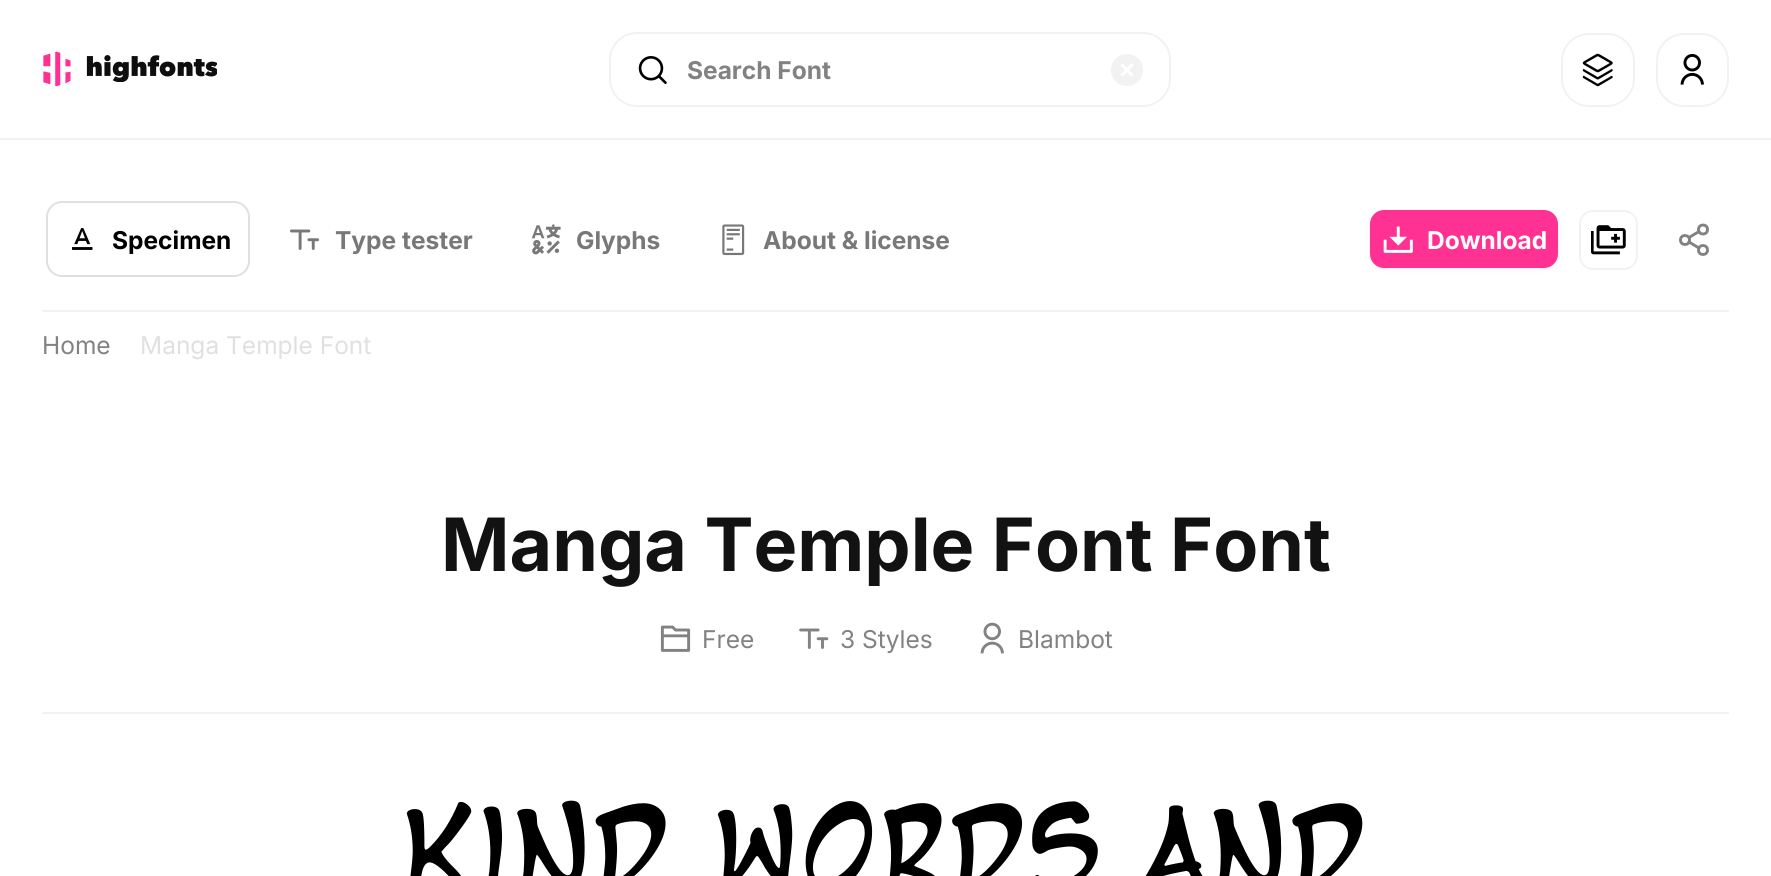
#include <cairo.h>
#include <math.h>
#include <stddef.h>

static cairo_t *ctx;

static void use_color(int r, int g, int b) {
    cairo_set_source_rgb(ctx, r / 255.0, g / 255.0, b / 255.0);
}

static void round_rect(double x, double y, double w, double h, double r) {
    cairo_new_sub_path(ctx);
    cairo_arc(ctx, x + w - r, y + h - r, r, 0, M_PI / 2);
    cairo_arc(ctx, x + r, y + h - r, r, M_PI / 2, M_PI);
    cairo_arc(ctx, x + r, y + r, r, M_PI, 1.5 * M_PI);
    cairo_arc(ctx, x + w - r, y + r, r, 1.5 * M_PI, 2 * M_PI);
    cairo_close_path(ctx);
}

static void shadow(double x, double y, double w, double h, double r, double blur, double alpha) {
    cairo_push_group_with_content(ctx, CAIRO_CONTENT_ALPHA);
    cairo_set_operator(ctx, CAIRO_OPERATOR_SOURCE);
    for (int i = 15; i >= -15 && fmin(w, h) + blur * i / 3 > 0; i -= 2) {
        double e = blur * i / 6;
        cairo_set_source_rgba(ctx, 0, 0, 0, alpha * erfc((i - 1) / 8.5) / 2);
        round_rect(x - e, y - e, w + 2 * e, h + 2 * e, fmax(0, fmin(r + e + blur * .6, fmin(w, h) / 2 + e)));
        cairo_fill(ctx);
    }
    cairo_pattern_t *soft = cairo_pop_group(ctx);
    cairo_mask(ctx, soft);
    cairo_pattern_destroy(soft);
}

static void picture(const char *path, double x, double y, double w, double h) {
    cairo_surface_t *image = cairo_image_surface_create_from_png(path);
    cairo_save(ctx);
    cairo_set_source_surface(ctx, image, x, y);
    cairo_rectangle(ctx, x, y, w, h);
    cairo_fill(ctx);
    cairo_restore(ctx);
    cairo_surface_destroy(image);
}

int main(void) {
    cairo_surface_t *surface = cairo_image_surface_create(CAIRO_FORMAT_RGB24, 1771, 876);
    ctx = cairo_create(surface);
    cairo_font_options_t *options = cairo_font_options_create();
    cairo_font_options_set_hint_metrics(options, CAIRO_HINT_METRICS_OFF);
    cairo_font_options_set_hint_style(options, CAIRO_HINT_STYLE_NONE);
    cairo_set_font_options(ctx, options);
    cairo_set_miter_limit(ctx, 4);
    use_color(255, 255, 255);
    cairo_paint(ctx);
    use_color(242, 242, 242);
    cairo_rectangle(ctx, 0, 138, 1771, 2);
    cairo_fill(ctx);
    picture("img1.png", 43, 51, 28, 36);
    picture("img2.png", 86, 55, 131, 27);
    round_rect(610, 33, 560, 73, 27);
    cairo_stroke(ctx);
    picture("img3.png", 638, 56, 29, 28);
    cairo_select_font_face(ctx, "Inter", CAIRO_FONT_SLANT_NORMAL, CAIRO_FONT_WEIGHT_BOLD);
    cairo_set_font_size(ctx, 24.5);
    use_color(130, 130, 130);
    cairo_move_to(ctx, 687, 79);
    cairo_show_text(ctx, "Search Font");
    picture("img4.png", 1111, 54, 32, 32);
    round_rect(1562, 34, 72, 72, 27);
    use_color(242, 242, 242);
    cairo_stroke(ctx);
    picture("img5.png", 1582, 53, 31, 34);
    round_rect(1657, 34, 71, 72, 27);
    cairo_stroke(ctx);
    picture("img6.png", 1680, 54, 24, 31);
    round_rect(47, 202, 202, 74, 15);
    use_color(224, 224, 224);
    cairo_stroke(ctx);
    picture("img7.png", 72, 228, 21, 22);
    use_color(0, 0, 0);
    cairo_move_to(ctx, 112, 249);
    cairo_show_text(ctx, "Specimen");
    picture("img8.png", 290, 229, 30, 21);
    use_color(120, 120, 120);
    cairo_move_to(ctx, 335, 249);
    cairo_show_text(ctx, "Type tester");
    picture("img9.png", 531, 224, 30, 31);
    cairo_move_to(ctx, 576, 249);
    cairo_show_text(ctx, "Glyphs");
    picture("img10.png", 722, 224, 23, 32);
    cairo_move_to(ctx, 763, 249);
    cairo_show_text(ctx, "About & license");
    use_color(0, 0, 0);
    shadow(1370, 212, 188, 58, 14, 2, 0.05);
    use_color(255, 50, 148);
    round_rect(1370, 210, 188, 58, 14);
    cairo_fill(ctx);
    picture("img11.png", 1383, 226, 30, 27);
    use_color(255, 255, 255);
    cairo_move_to(ctx, 1427, 249);
    cairo_show_text(ctx, "Download");
    round_rect(1580, 211, 57, 58, 13);
    use_color(242, 242, 242);
    cairo_stroke(ctx);
    picture("img12.png", 1591, 225, 35, 30);
    cairo_arc(ctx, 1703, 229.5, 4.5, 0, 2 * M_PI);
    use_color(130, 130, 130);
    cairo_set_line_width(ctx, 2.9);
    cairo_stroke(ctx);
    cairo_arc(ctx, 1685, 240, 4.5, 0, 2 * M_PI);
    cairo_stroke(ctx);
    cairo_arc(ctx, 1703, 250, 4.5, 0, 2 * M_PI);
    cairo_stroke(ctx);
    cairo_new_path(ctx);
    cairo_move_to(ctx, 1689, 242);
    cairo_line_to(ctx, 1699, 248);
    cairo_move_to(ctx, 1699, 231.5);
    cairo_line_to(ctx, 1689, 237.5);
    cairo_set_line_cap(ctx, CAIRO_LINE_CAP_ROUND);
    cairo_set_line_join(ctx, CAIRO_LINE_JOIN_ROUND);
    cairo_stroke(ctx);
    use_color(242, 242, 242);
    cairo_rectangle(ctx, 42, 310, 1687, 2);
    cairo_fill(ctx);
    cairo_select_font_face(ctx, "Inter", CAIRO_FONT_SLANT_NORMAL, CAIRO_FONT_WEIGHT_NORMAL);
    use_color(130, 130, 130);
    cairo_move_to(ctx, 42, 354);
    cairo_show_text(ctx, "Home");
    use_color(224, 224, 224);
    cairo_move_to(ctx, 140, 354);
    cairo_show_text(ctx, "Manga Temple Font");
    cairo_select_font_face(ctx, "Inter", CAIRO_FONT_SLANT_NORMAL, CAIRO_FONT_WEIGHT_BOLD);
    cairo_set_font_size(ctx, 73.5);
    use_color(18, 18, 18);
    cairo_move_to(ctx, 441, 571);
    cairo_show_text(ctx, "Manga Temple Font Font");
    picture("img13.png", 660, 625, 31, 27);
    cairo_select_font_face(ctx, "Inter", CAIRO_FONT_SLANT_NORMAL, CAIRO_FONT_WEIGHT_NORMAL);
    cairo_set_font_size(ctx, 24.5);
    use_color(130, 130, 130);
    cairo_move_to(ctx, 702, 648);
    cairo_show_text(ctx, "Free");
    picture("img14.png", 799, 628, 30, 21);
    cairo_move_to(ctx, 840, 648);
    cairo_show_text(ctx, "3 Styles");
    picture("img15.png", 980, 622, 24, 32);
    cairo_move_to(ctx, 1018, 648);
    cairo_show_text(ctx, "Blambot");
    use_color(242, 242, 242);
    cairo_rectangle(ctx, 42, 712, 1687, 2);
    cairo_fill(ctx);
    cairo_select_font_face(ctx, "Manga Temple", CAIRO_FONT_SLANT_NORMAL, CAIRO_FONT_WEIGHT_NORMAL);
    cairo_set_font_size(ctx, 105);
    use_color(0, 0, 0);
    cairo_move_to(ctx, 404, 891);
    cairo_show_text(ctx, "Kind words and");
    cairo_surface_write_to_png(surface, "result.png");
    cairo_font_options_destroy(options);
    cairo_destroy(ctx);
    cairo_surface_destroy(surface);
    return 0;
}
